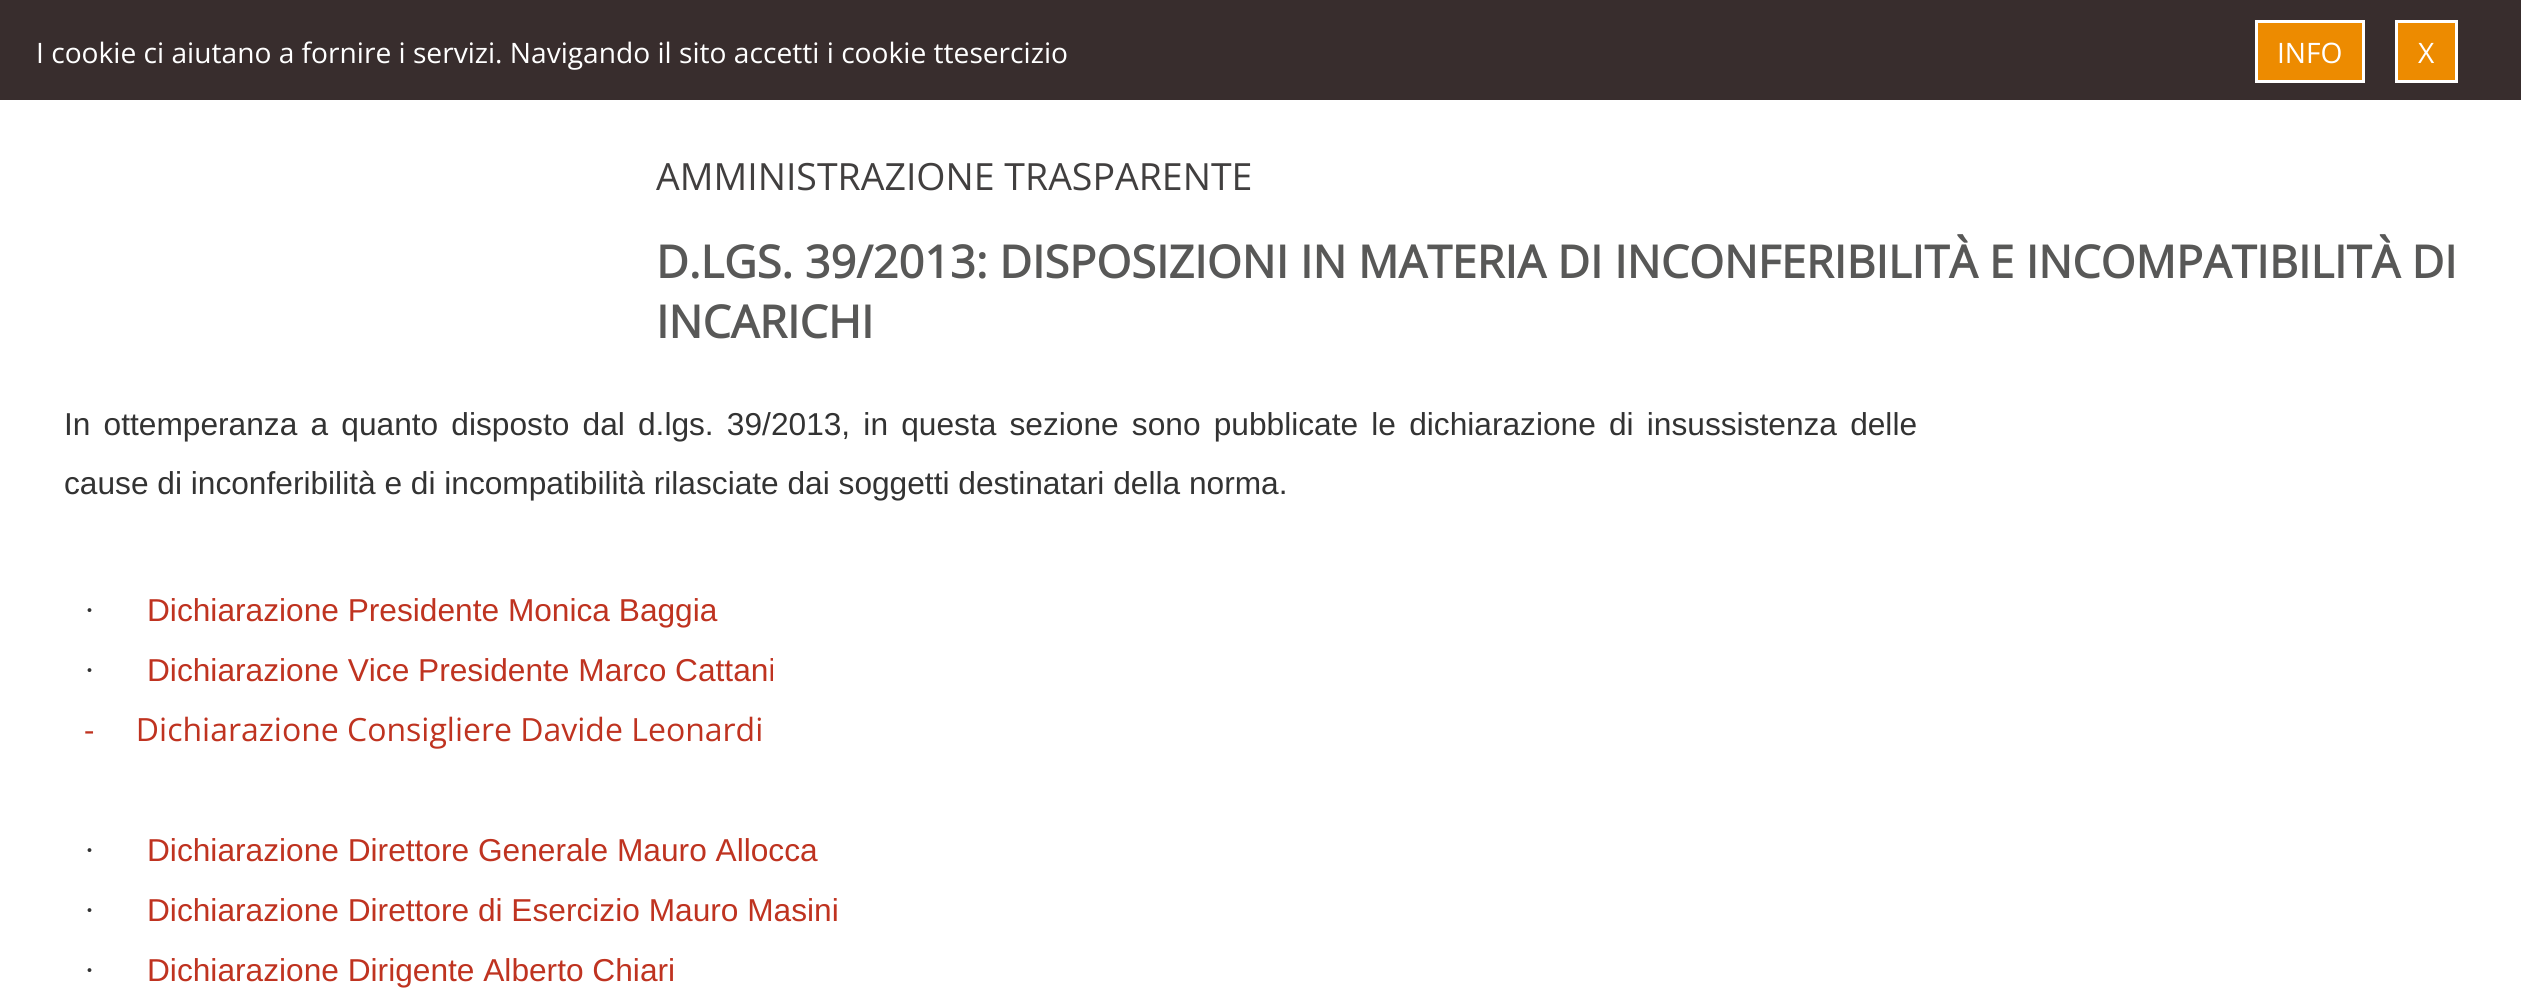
#include <cairo.h>
#include <math.h>
#include <stddef.h>

static cairo_t *ctx;

static void use_color(int r, int g, int b) {
    cairo_set_source_rgb(ctx, r / 255.0, g / 255.0, b / 255.0);
}

static void spaced_text(double x, double y, const char *s, double letter, double word) {
    cairo_move_to(ctx, x, y);
    while (*s) {
        char ch[5] = {0};
        int n = 0;
        do ch[n++] = *s++; while ((*s & 0xC0) == 0x80);
        cairo_show_text(ctx, ch);
        cairo_rel_move_to(ctx, letter + word * (*ch == ' '), 0);
    }
}

int main(void) {
    cairo_surface_t *surface = cairo_image_surface_create(CAIRO_FORMAT_RGB24, 2521, 990);
    ctx = cairo_create(surface);
    cairo_font_options_t *options = cairo_font_options_create();
    cairo_font_options_set_hint_metrics(options, CAIRO_HINT_METRICS_OFF);
    cairo_font_options_set_hint_style(options, CAIRO_HINT_STYLE_NONE);
    cairo_set_font_options(ctx, options);
    cairo_set_miter_limit(ctx, 4);
    use_color(255, 255, 255);
    cairo_paint(ctx);
    use_color(56, 45, 45);
    cairo_rectangle(ctx, 0, 0, 2521, 100);
    cairo_fill(ctx);
    cairo_select_font_face(ctx, "Open Sans", CAIRO_FONT_SLANT_NORMAL, CAIRO_FONT_WEIGHT_NORMAL);
    cairo_set_font_size(ctx, 28.15);
    use_color(255, 255, 255);
    cairo_move_to(ctx, 36, 63);
    cairo_show_text(ctx, "I cookie ci aiutano a fornire i servizi. Navigando il sito accetti i cookie ttesercizio");
    use_color(237, 139, 0);
    cairo_rectangle(ctx, 2256.5, 21.5, 107, 60);
    cairo_fill_preserve(ctx);
    use_color(255, 255, 255);
    cairo_set_line_width(ctx, 3);
    cairo_stroke(ctx);
    cairo_move_to(ctx, 2277, 63);
    cairo_show_text(ctx, "INFO");
    use_color(237, 139, 0);
    cairo_rectangle(ctx, 2396.5, 21.5, 60, 60);
    cairo_fill_preserve(ctx);
    use_color(255, 255, 255);
    cairo_stroke(ctx);
    cairo_move_to(ctx, 2418, 63);
    cairo_show_text(ctx, "X");
    cairo_set_font_size(ctx, 37.5);
    use_color(65, 63, 63);
    cairo_move_to(ctx, 656, 190);
    cairo_show_text(ctx, "AMMINISTRAZIONE TRASPARENTE");
    cairo_select_font_face(ctx, "Open Sans", CAIRO_FONT_SLANT_NORMAL, CAIRO_FONT_WEIGHT_BOLD);
    cairo_set_font_size(ctx, 45);
    use_color(88, 88, 87);
    cairo_move_to(ctx, 656, 278);
    cairo_show_text(ctx, "D.LGS. 39/2013: DISPOSIZIONI IN MATERIA DI INCONFERIBILITÀ E INCOMPATIBILITÀ DI");
    cairo_move_to(ctx, 656, 338);
    cairo_show_text(ctx, "INCARICHI");
    cairo_select_font_face(ctx, "Liberation Sans", CAIRO_FONT_SLANT_NORMAL, CAIRO_FONT_WEIGHT_NORMAL);
    cairo_set_font_size(ctx, 31.67);
    use_color(51, 51, 51);
    spaced_text(64, 435, "In ottemperanza a quanto disposto dal d.lgs. 39/2013, in questa sezione sono pubblicate le dichiarazione di insussistenza delle", 0, 4.4);
    cairo_move_to(ctx, 64, 494);
    cairo_show_text(ctx, "cause di inconferibilità e di incompatibilità rilasciate dai soggetti destinatari della norma.");
    cairo_select_font_face(ctx, "Liberation Serif", CAIRO_FONT_SLANT_NORMAL, CAIRO_FONT_WEIGHT_NORMAL);
    cairo_set_font_size(ctx, 33);
    cairo_move_to(ctx, 84, 621);
    cairo_show_text(ctx, "·");
    cairo_select_font_face(ctx, "Liberation Sans", CAIRO_FONT_SLANT_NORMAL, CAIRO_FONT_WEIGHT_NORMAL);
    cairo_set_font_size(ctx, 31.67);
    use_color(191, 51, 32);
    cairo_move_to(ctx, 147, 621);
    cairo_show_text(ctx, "Dichiarazione Presidente Monica Baggia");
    cairo_select_font_face(ctx, "Liberation Serif", CAIRO_FONT_SLANT_NORMAL, CAIRO_FONT_WEIGHT_NORMAL);
    cairo_set_font_size(ctx, 33);
    use_color(51, 51, 51);
    cairo_move_to(ctx, 84, 681);
    cairo_show_text(ctx, "·");
    cairo_select_font_face(ctx, "Liberation Sans", CAIRO_FONT_SLANT_NORMAL, CAIRO_FONT_WEIGHT_NORMAL);
    cairo_set_font_size(ctx, 31.67);
    use_color(191, 51, 32);
    cairo_move_to(ctx, 147, 681);
    cairo_show_text(ctx, "Dichiarazione Vice Presidente Marco Cattani");
    cairo_select_font_face(ctx, "Open Sans", CAIRO_FONT_SLANT_NORMAL, CAIRO_FONT_WEIGHT_NORMAL);
    cairo_set_font_size(ctx, 32);
    cairo_move_to(ctx, 84, 741);
    cairo_show_text(ctx, "-     Dichiarazione Consigliere Davide Leonardi");
    cairo_select_font_face(ctx, "Liberation Serif", CAIRO_FONT_SLANT_NORMAL, CAIRO_FONT_WEIGHT_NORMAL);
    cairo_set_font_size(ctx, 33);
    use_color(51, 51, 51);
    cairo_move_to(ctx, 84, 861);
    cairo_show_text(ctx, "·");
    cairo_select_font_face(ctx, "Liberation Sans", CAIRO_FONT_SLANT_NORMAL, CAIRO_FONT_WEIGHT_NORMAL);
    cairo_set_font_size(ctx, 31.67);
    use_color(191, 51, 32);
    cairo_move_to(ctx, 147, 861);
    cairo_show_text(ctx, "Dichiarazione Direttore Generale Mauro Allocca");
    cairo_select_font_face(ctx, "Liberation Serif", CAIRO_FONT_SLANT_NORMAL, CAIRO_FONT_WEIGHT_NORMAL);
    cairo_set_font_size(ctx, 33);
    use_color(51, 51, 51);
    cairo_move_to(ctx, 84, 921);
    cairo_show_text(ctx, "·");
    cairo_select_font_face(ctx, "Liberation Sans", CAIRO_FONT_SLANT_NORMAL, CAIRO_FONT_WEIGHT_NORMAL);
    cairo_set_font_size(ctx, 31.67);
    use_color(191, 51, 32);
    cairo_move_to(ctx, 147, 921);
    cairo_show_text(ctx, "Dichiarazione Direttore di Esercizio Mauro Masini");
    cairo_select_font_face(ctx, "Liberation Serif", CAIRO_FONT_SLANT_NORMAL, CAIRO_FONT_WEIGHT_NORMAL);
    cairo_set_font_size(ctx, 33);
    use_color(51, 51, 51);
    cairo_move_to(ctx, 84, 981);
    cairo_show_text(ctx, "·");
    cairo_select_font_face(ctx, "Liberation Sans", CAIRO_FONT_SLANT_NORMAL, CAIRO_FONT_WEIGHT_NORMAL);
    cairo_set_font_size(ctx, 31.67);
    use_color(191, 51, 32);
    cairo_move_to(ctx, 147, 981);
    cairo_show_text(ctx, "Dichiarazione Dirigente Alberto Chiari");
    cairo_surface_write_to_png(surface, "result.png");
    cairo_font_options_destroy(options);
    cairo_destroy(ctx);
    cairo_surface_destroy(surface);
    return 0;
}
